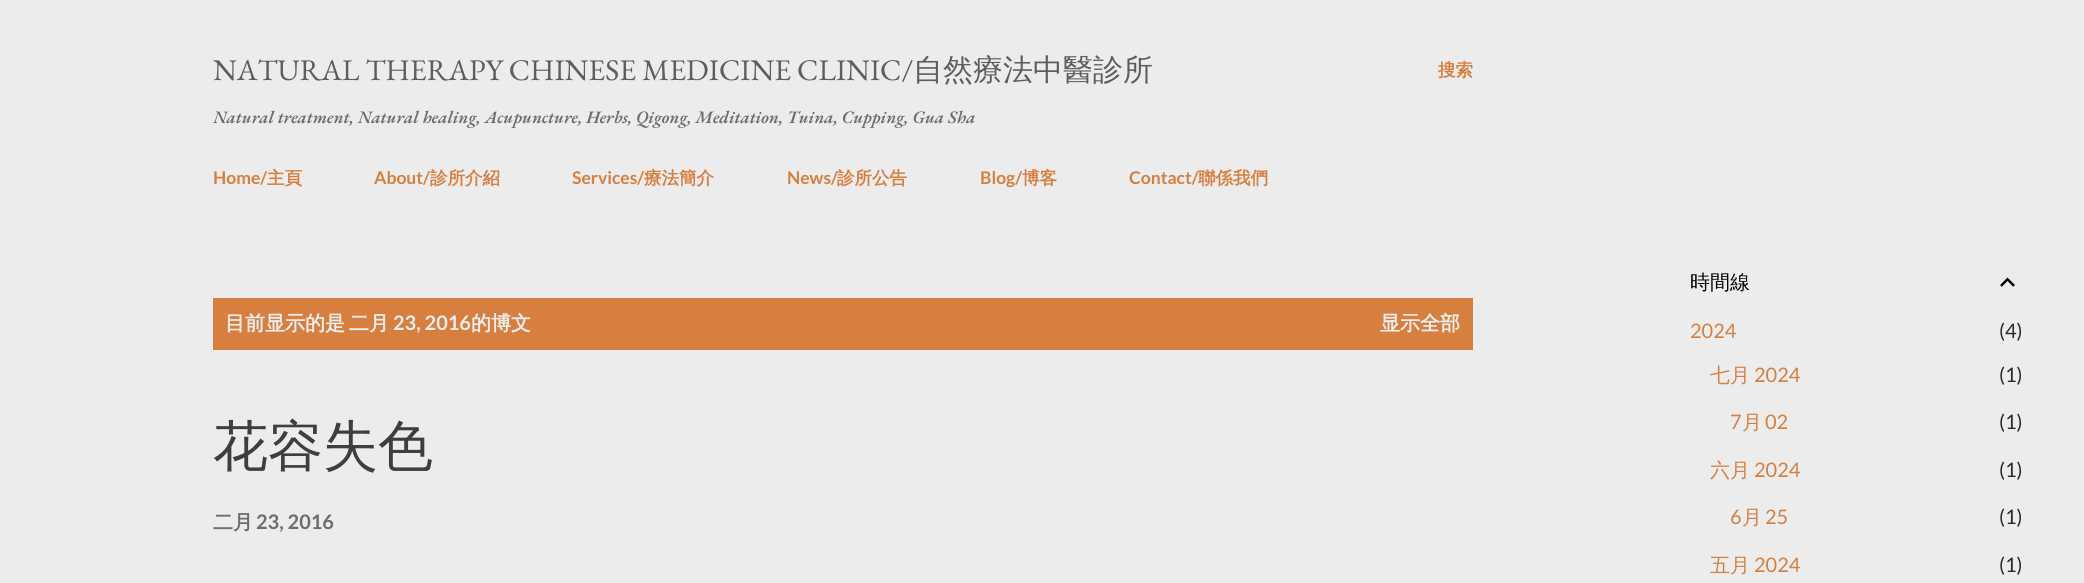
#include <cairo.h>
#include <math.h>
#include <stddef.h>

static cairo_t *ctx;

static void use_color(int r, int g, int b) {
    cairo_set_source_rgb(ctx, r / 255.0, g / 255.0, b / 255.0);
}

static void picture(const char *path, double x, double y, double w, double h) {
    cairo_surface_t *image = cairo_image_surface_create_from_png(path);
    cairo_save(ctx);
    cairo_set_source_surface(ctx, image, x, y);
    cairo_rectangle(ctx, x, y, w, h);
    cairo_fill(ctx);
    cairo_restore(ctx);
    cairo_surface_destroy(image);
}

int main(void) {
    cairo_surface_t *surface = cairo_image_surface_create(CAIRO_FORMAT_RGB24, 2084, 583);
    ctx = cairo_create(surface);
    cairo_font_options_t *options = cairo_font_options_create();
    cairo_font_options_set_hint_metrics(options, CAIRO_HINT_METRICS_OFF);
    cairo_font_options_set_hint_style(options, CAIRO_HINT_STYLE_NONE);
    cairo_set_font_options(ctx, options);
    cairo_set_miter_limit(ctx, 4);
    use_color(236, 236, 236);
    cairo_paint(ctx);
    cairo_select_font_face(ctx, "EB Garamond", CAIRO_FONT_SLANT_NORMAL, CAIRO_FONT_WEIGHT_NORMAL);
    cairo_set_font_size(ctx, 30);
    use_color(94, 92, 97);
    cairo_move_to(ctx, 213, 80);
    cairo_show_text(ctx, "NATURAL THERAPY CHINESE MEDICINE CLINIC/");
    cairo_select_font_face(ctx, "WenQuanYi Zen Hei Medium", CAIRO_FONT_SLANT_NORMAL, CAIRO_FONT_WEIGHT_NORMAL);
    cairo_move_to(ctx, 913, 80);
    cairo_show_text(ctx, "自然療法中醫診所");
    cairo_select_font_face(ctx, "EB Garamond SemiBold", CAIRO_FONT_SLANT_ITALIC, CAIRO_FONT_WEIGHT_NORMAL);
    cairo_set_font_size(ctx, 17.5);
    use_color(109, 109, 109);
    cairo_move_to(ctx, 213, 123);
    cairo_show_text(ctx, "Natural treatment, Natural healing, Acupuncture, Herbs, Qigong, Meditation, Tuina, Cupping, Gua Sha");
    cairo_select_font_face(ctx, "WenQuanYi Zen Hei", CAIRO_FONT_SLANT_NORMAL, CAIRO_FONT_WEIGHT_BOLD);
    use_color(214, 127, 63);
    cairo_move_to(ctx, 1438, 76);
    cairo_show_text(ctx, "搜索");
    cairo_select_font_face(ctx, "Lato", CAIRO_FONT_SLANT_NORMAL, CAIRO_FONT_WEIGHT_BOLD);
    cairo_move_to(ctx, 213, 184);
    cairo_show_text(ctx, "Home/");
    cairo_select_font_face(ctx, "WenQuanYi Zen Hei", CAIRO_FONT_SLANT_NORMAL, CAIRO_FONT_WEIGHT_BOLD);
    cairo_move_to(ctx, 267, 184);
    cairo_show_text(ctx, "主頁");
    cairo_select_font_face(ctx, "Lato", CAIRO_FONT_SLANT_NORMAL, CAIRO_FONT_WEIGHT_BOLD);
    cairo_move_to(ctx, 374, 184);
    cairo_show_text(ctx, "About/");
    cairo_select_font_face(ctx, "WenQuanYi Zen Hei", CAIRO_FONT_SLANT_NORMAL, CAIRO_FONT_WEIGHT_BOLD);
    cairo_move_to(ctx, 430, 184);
    cairo_show_text(ctx, "診所介紹");
    cairo_select_font_face(ctx, "Lato", CAIRO_FONT_SLANT_NORMAL, CAIRO_FONT_WEIGHT_BOLD);
    cairo_move_to(ctx, 572, 184);
    cairo_show_text(ctx, "Services/");
    cairo_select_font_face(ctx, "WenQuanYi Zen Hei", CAIRO_FONT_SLANT_NORMAL, CAIRO_FONT_WEIGHT_BOLD);
    cairo_move_to(ctx, 644, 184);
    cairo_show_text(ctx, "療法簡介");
    cairo_select_font_face(ctx, "Lato", CAIRO_FONT_SLANT_NORMAL, CAIRO_FONT_WEIGHT_BOLD);
    cairo_move_to(ctx, 787, 184);
    cairo_show_text(ctx, "News/");
    cairo_select_font_face(ctx, "WenQuanYi Zen Hei", CAIRO_FONT_SLANT_NORMAL, CAIRO_FONT_WEIGHT_BOLD);
    cairo_move_to(ctx, 837, 184);
    cairo_show_text(ctx, "診所公告");
    cairo_select_font_face(ctx, "Lato", CAIRO_FONT_SLANT_NORMAL, CAIRO_FONT_WEIGHT_BOLD);
    cairo_move_to(ctx, 980, 184);
    cairo_show_text(ctx, "Blog/");
    cairo_select_font_face(ctx, "WenQuanYi Zen Hei", CAIRO_FONT_SLANT_NORMAL, CAIRO_FONT_WEIGHT_BOLD);
    cairo_move_to(ctx, 1022, 184);
    cairo_show_text(ctx, "博客");
    cairo_select_font_face(ctx, "Lato", CAIRO_FONT_SLANT_NORMAL, CAIRO_FONT_WEIGHT_BOLD);
    cairo_move_to(ctx, 1129, 184);
    cairo_show_text(ctx, "Contact/");
    cairo_select_font_face(ctx, "WenQuanYi Zen Hei", CAIRO_FONT_SLANT_NORMAL, CAIRO_FONT_WEIGHT_BOLD);
    cairo_move_to(ctx, 1198, 184);
    cairo_show_text(ctx, "聯係我們");
    cairo_rectangle(ctx, 213, 298, 1260, 52);
    cairo_fill(ctx);
    cairo_set_font_size(ctx, 20);
    use_color(236, 236, 236);
    cairo_move_to(ctx, 225, 330);
    cairo_show_text(ctx, "目前显示的是");
    cairo_move_to(ctx, 349, 330);
    cairo_show_text(ctx, "二月");
    cairo_select_font_face(ctx, "Lato", CAIRO_FONT_SLANT_NORMAL, CAIRO_FONT_WEIGHT_BOLD);
    cairo_move_to(ctx, 393, 330);
    cairo_show_text(ctx, "23, 2016");
    cairo_select_font_face(ctx, "WenQuanYi Zen Hei", CAIRO_FONT_SLANT_NORMAL, CAIRO_FONT_WEIGHT_BOLD);
    cairo_move_to(ctx, 471, 330);
    cairo_show_text(ctx, "的博文");
    cairo_move_to(ctx, 1380, 330);
    cairo_show_text(ctx, "显示全部");
    cairo_select_font_face(ctx, "WenQuanYi Zen Hei Medium", CAIRO_FONT_SLANT_NORMAL, CAIRO_FONT_WEIGHT_NORMAL);
    cairo_set_font_size(ctx, 55);
    use_color(62, 63, 60);
    cairo_move_to(ctx, 213, 465);
    cairo_show_text(ctx, "花容失色");
    cairo_select_font_face(ctx, "WenQuanYi Zen Hei", CAIRO_FONT_SLANT_NORMAL, CAIRO_FONT_WEIGHT_BOLD);
    cairo_set_font_size(ctx, 20);
    use_color(109, 109, 109);
    cairo_move_to(ctx, 213, 529);
    cairo_show_text(ctx, "二月");
    cairo_select_font_face(ctx, "Lato", CAIRO_FONT_SLANT_NORMAL, CAIRO_FONT_WEIGHT_BOLD);
    cairo_move_to(ctx, 256, 529);
    cairo_show_text(ctx, "23, 2016");
    cairo_select_font_face(ctx, "WenQuanYi Zen Hei Medium", CAIRO_FONT_SLANT_NORMAL, CAIRO_FONT_WEIGHT_NORMAL);
    use_color(0, 0, 0);
    cairo_move_to(ctx, 1690, 289);
    cairo_show_text(ctx, "時間線");
    picture("img1.png", 2000, 277, 15, 10);
    cairo_select_font_face(ctx, "Lato", CAIRO_FONT_SLANT_NORMAL, CAIRO_FONT_WEIGHT_NORMAL);
    use_color(214, 127, 63);
    cairo_move_to(ctx, 1690, 338);
    cairo_show_text(ctx, "2024");
    use_color(41, 41, 41);
    cairo_move_to(ctx, 1999, 338);
    cairo_show_text(ctx, "(4)");
    cairo_select_font_face(ctx, "WenQuanYi Zen Hei Medium", CAIRO_FONT_SLANT_NORMAL, CAIRO_FONT_WEIGHT_NORMAL);
    use_color(214, 127, 63);
    cairo_move_to(ctx, 1710, 382);
    cairo_show_text(ctx, "七月");
    cairo_select_font_face(ctx, "Lato", CAIRO_FONT_SLANT_NORMAL, CAIRO_FONT_WEIGHT_NORMAL);
    cairo_move_to(ctx, 1754, 382);
    cairo_show_text(ctx, "2024");
    use_color(41, 41, 41);
    cairo_move_to(ctx, 1999, 382);
    cairo_show_text(ctx, "(1)");
    use_color(214, 127, 63);
    cairo_move_to(ctx, 1730, 429);
    cairo_show_text(ctx, "7");
    cairo_select_font_face(ctx, "WenQuanYi Zen Hei Medium", CAIRO_FONT_SLANT_NORMAL, CAIRO_FONT_WEIGHT_NORMAL);
    cairo_move_to(ctx, 1742, 429);
    cairo_show_text(ctx, "月");
    cairo_select_font_face(ctx, "Lato", CAIRO_FONT_SLANT_NORMAL, CAIRO_FONT_WEIGHT_NORMAL);
    cairo_move_to(ctx, 1765, 429);
    cairo_show_text(ctx, "02");
    use_color(41, 41, 41);
    cairo_move_to(ctx, 1999, 429);
    cairo_show_text(ctx, "(1)");
    cairo_select_font_face(ctx, "WenQuanYi Zen Hei Medium", CAIRO_FONT_SLANT_NORMAL, CAIRO_FONT_WEIGHT_NORMAL);
    use_color(214, 127, 63);
    cairo_move_to(ctx, 1710, 477);
    cairo_show_text(ctx, "六月");
    cairo_select_font_face(ctx, "Lato", CAIRO_FONT_SLANT_NORMAL, CAIRO_FONT_WEIGHT_NORMAL);
    cairo_move_to(ctx, 1754, 477);
    cairo_show_text(ctx, "2024");
    use_color(41, 41, 41);
    cairo_move_to(ctx, 1999, 477);
    cairo_show_text(ctx, "(1)");
    use_color(214, 127, 63);
    cairo_move_to(ctx, 1730, 524);
    cairo_show_text(ctx, "6");
    cairo_select_font_face(ctx, "WenQuanYi Zen Hei Medium", CAIRO_FONT_SLANT_NORMAL, CAIRO_FONT_WEIGHT_NORMAL);
    cairo_move_to(ctx, 1742, 524);
    cairo_show_text(ctx, "月");
    cairo_select_font_face(ctx, "Lato", CAIRO_FONT_SLANT_NORMAL, CAIRO_FONT_WEIGHT_NORMAL);
    cairo_move_to(ctx, 1765, 524);
    cairo_show_text(ctx, "25");
    use_color(41, 41, 41);
    cairo_move_to(ctx, 1999, 524);
    cairo_show_text(ctx, "(1)");
    cairo_select_font_face(ctx, "WenQuanYi Zen Hei Medium", CAIRO_FONT_SLANT_NORMAL, CAIRO_FONT_WEIGHT_NORMAL);
    use_color(214, 127, 63);
    cairo_move_to(ctx, 1710, 572);
    cairo_show_text(ctx, "五月");
    cairo_select_font_face(ctx, "Lato", CAIRO_FONT_SLANT_NORMAL, CAIRO_FONT_WEIGHT_NORMAL);
    cairo_move_to(ctx, 1754, 572);
    cairo_show_text(ctx, "2024");
    use_color(41, 41, 41);
    cairo_move_to(ctx, 1999, 572);
    cairo_show_text(ctx, "(1)");
    cairo_surface_write_to_png(surface, "result.png");
    cairo_font_options_destroy(options);
    cairo_destroy(ctx);
    cairo_surface_destroy(surface);
    return 0;
}
